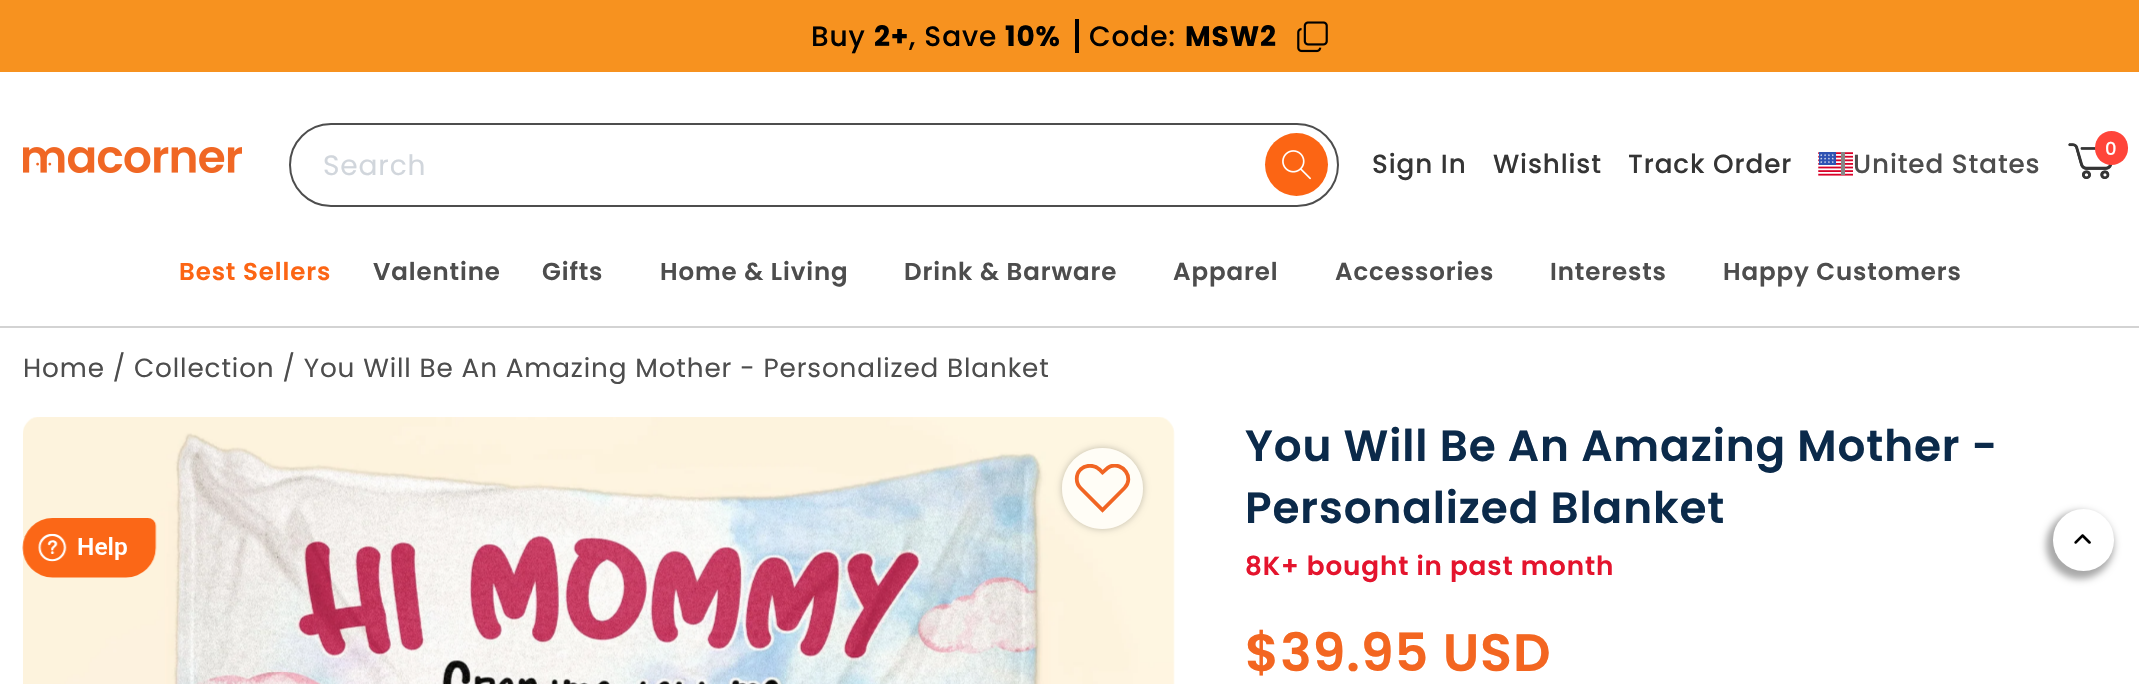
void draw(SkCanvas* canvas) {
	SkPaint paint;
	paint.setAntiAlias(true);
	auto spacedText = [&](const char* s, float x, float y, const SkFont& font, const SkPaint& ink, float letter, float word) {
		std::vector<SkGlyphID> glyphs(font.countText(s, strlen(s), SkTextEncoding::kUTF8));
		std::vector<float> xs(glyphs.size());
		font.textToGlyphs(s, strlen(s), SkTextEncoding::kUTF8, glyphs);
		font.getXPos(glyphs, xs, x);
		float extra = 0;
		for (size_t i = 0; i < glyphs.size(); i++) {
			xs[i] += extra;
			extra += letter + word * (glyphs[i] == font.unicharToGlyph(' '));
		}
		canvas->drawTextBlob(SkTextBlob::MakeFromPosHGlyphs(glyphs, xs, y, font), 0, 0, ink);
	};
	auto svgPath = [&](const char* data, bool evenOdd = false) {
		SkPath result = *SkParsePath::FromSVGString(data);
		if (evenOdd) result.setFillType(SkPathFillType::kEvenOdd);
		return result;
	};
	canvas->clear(0xffffffff);
	paint.setColor(0xffd3d3d3);
	canvas->drawRect(SkRect::MakeXYWH(0, 326, 2139, 2), paint);
	paint.setColor(0xfff7921f);
	canvas->drawRect(SkRect::MakeXYWH(0, 0, 2139, 72), paint);
	SkFont f1(fontMgr->matchFamilyStyle("Poppins", SkFontStyle(500, SkFontStyle::kNormal_Width, SkFontStyle::kUpright_Slant)), 28);
	f1.setSubpixel(true);
	paint.setColor(0xff000000);
	spacedText("Buy", 811, 46, f1, paint, 0.88, 0);
	SkFont f2(fontMgr->matchFamilyStyle("Poppins", SkFontStyle::Bold()), 28);
	f2.setSubpixel(true);
	spacedText("2+", 874, 46, f2, paint, 0.88, 0);
	spacedText(", Save", 909, 46, f1, paint, 0.88, 0);
	spacedText("10%", 1005, 46, f2, paint, 0.88, 0);
	canvas->drawRect(SkRect::MakeXYWH(1075, 19, 4, 34), paint);
	spacedText("Code:", 1089, 46, f1, paint, 0.88, 0);
	spacedText("MSW2", 1185, 46, f2, paint, 0.88, 0);
	canvas->drawImageRect(SkImages::DeferredFromEncodedData(SkData::MakeFromFileName("img1.png")), SkRect::MakeXYWH(1297, 21, 31, 32), SkSamplingOptions());
	canvas->drawImageRect(SkImages::DeferredFromEncodedData(SkData::MakeFromFileName("img2.png")), SkRect::MakeXYWH(23, 147, 219, 26), SkSamplingOptions());
	paint.setColor(0xfffc6514);
	canvas->drawCircle(1296.5, 164.5, 31.5, paint);
	canvas->drawImageRect(SkImages::DeferredFromEncodedData(SkData::MakeFromFileName("img3.png")), SkRect::MakeXYWH(1282, 150, 29, 30), SkSamplingOptions());
	paint.setStroke(true);
	paint.setStrokeWidth(2);
	paint.setColor(0xff4d4d4d);
	canvas->drawRoundRect(SkRect::MakeXYWH(290, 124, 1048, 82), 41, 41, paint);
	SkFont f3(fontMgr->matchFamilyStyle("Poppins", SkFontStyle::Normal()), 28);
	f3.setSubpixel(true);
	paint.setStroke(false);
	paint.setColor(0xffd1d6dc);
	spacedText("Search", 323, 175, f3, paint, 0.88, 0);
	canvas->drawImageRect(SkImages::DeferredFromEncodedData(SkData::MakeFromFileName("img4.png")), SkRect::MakeXYWH(2068, 143, 45, 36), SkSamplingOptions());
	paint.setColor(0xffff453a);
	canvas->drawRoundRect(SkRect::MakeXYWH(2095, 131, 33, 34), 16.5, 16.5, paint);
	SkFont f4(fontMgr->matchFamilyStyle("Poppins", SkFontStyle(500, SkFontStyle::kNormal_Width, SkFontStyle::kUpright_Slant)), 18);
	f4.setSubpixel(true);
	paint.setColor(0xffffffff);
	spacedText("0", 2105, 155, f4, paint, 0.88, 0);
	SkFont f5(fontMgr->matchFamilyStyle("Poppins", SkFontStyle(500, SkFontStyle::kNormal_Width, SkFontStyle::kUpright_Slant)), 26.25);
	f5.setSubpixel(true);
	paint.setColor(0xff353535);
	spacedText("Sign In", 1372, 173, f5, paint, 0.88, 0);
	spacedText("Wishlist", 1493, 173, f5, paint, 0.88, 0);
	spacedText("Track Order", 1628, 173, f5, paint, 0.88, 0);
	canvas->drawImageRect(SkImages::DeferredFromEncodedData(SkData::MakeFromFileName("img5.png")), SkRect::MakeXYWH(1818, 152, 35, 24), SkSamplingOptions());
	paint.setColor(0xff888686);
	canvas->drawRect(SkRect::MakeXYWH(1841, 152, 4, 23), paint);
	paint.setColor(0xff4d4d4d);
	spacedText("United States", 1853, 173, f5, paint, 0.88, 0);
	SkFont f6(fontMgr->matchFamilyStyle("Poppins", SkFontStyle(600, SkFontStyle::kNormal_Width, SkFontStyle::kUpright_Slant)), 24.5);
	f6.setSubpixel(true);
	paint.setColor(0xfffc6514);
	spacedText("Best Sellers", 179, 280, f6, paint, 0.88, 0);
	paint.setColor(0xff4d4d4d);
	spacedText("Valentine", 373, 280, f6, paint, 0.88, 0);
	spacedText("Gifts", 542, 280, f6, paint, 0.88, 0);
	spacedText("Home & Living", 660, 280, f6, paint, 0.88, 0);
	spacedText("Drink & Barware", 904, 280, f6, paint, 0.88, 0);
	spacedText("Apparel", 1173, 280, f6, paint, 0.88, 0);
	spacedText("Accessories", 1335, 280, f6, paint, 0.88, 0);
	spacedText("Interests", 1550, 280, f6, paint, 0.88, 0);
	spacedText("Happy Customers", 1723, 280, f6, paint, 0.88, 0);
	SkFont f7(fontMgr->matchFamilyStyle("Poppins", SkFontStyle::Normal()), 26.25);
	f7.setSubpixel(true);
	spacedText("Home / Collection / You Will Be An Amazing Mother - Personalized Blanket", 23, 377, f7, paint, 0.88, 0);
	canvas->drawImageRect(SkImages::DeferredFromEncodedData(SkData::MakeFromFileName("img6.png")), SkRect::MakeXYWH(23, 417, 1152, 267), SkSamplingOptions());
	canvas->save();
	canvas->clipPath(svgPath("M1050 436H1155V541H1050ZM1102.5 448C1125 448 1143 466 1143 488.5C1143 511 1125 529 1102.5 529C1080 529 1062 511 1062 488.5C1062 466 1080 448 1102.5 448Z", true), true);
	paint.setColor(0x40000000);
	paint.setMaskFilter(SkMaskFilter::MakeBlur(kNormal_SkBlurStyle, 3.5));
	canvas->drawRoundRect(SkRect::MakeXYWH(1062, 448, 81, 81), 40.5, 40.5, paint);
	paint.setMaskFilter(nullptr);
	canvas->restore();
	paint.setColor(0xb3ffffff);
	canvas->drawCircle(1102.5, 488.5, 40.5, paint);
	canvas->save();
	canvas->clipRect(SkRect::MakeXYWH(1073, 464, 59, 49));
	paint.setStroke(true);
	paint.setStrokeWidth(3.8);
	paint.setColor(0xfff16523);
	canvas->drawPath(svgPath("M1124.5 488L1102.5 510L1080.5 488C1075.5 483 1075.5 474.5 1080.5 469.5C1086 464.5 1094 464.5 1099.5 469.5L1102.5 472.5C1105 470.5 1107 468 1110 466.5C1123 461.5 1134.5 478 1124.5 488Z"), paint);
	canvas->restore();
	SkFont f8(fontMgr->matchFamilyStyle("Poppins", SkFontStyle(600, SkFontStyle::kNormal_Width, SkFontStyle::kUpright_Slant)), 43.75);
	f8.setSubpixel(true);
	paint.setStroke(false);
	paint.setColor(0xff0b2a4a);
	spacedText("You Will Be An Amazing Mother -", 1245, 461, f8, paint, 0.88, 0);
	spacedText("Personalized Blanket", 1245, 523, f8, paint, 0.88, 0);
	SkFont f9(fontMgr->matchFamilyStyle("Poppins", SkFontStyle(600, SkFontStyle::kNormal_Width, SkFontStyle::kUpright_Slant)), 26.25);
	f9.setSubpixel(true);
	paint.setColor(0xffe4142d);
	spacedText("8K+ bought in past month", 1245, 575, f9, paint, 0.88, 0);
	SkFont f10(fontMgr->matchFamilyStyle("Poppins", SkFontStyle(600, SkFontStyle::kNormal_Width, SkFontStyle::kUpright_Slant)), 52.5);
	f10.setSubpixel(true);
	paint.setColor(0xfff36621);
	spacedText("$39.95 USD", 1245, 671, f10, paint, 0.88, 0);
	paint.setColor(0xffa9a9a9);
	paint.setMaskFilter(SkMaskFilter::MakeBlur(kNormal_SkBlurStyle, 3.5));
	canvas->drawRoundRect(SkRect::MakeXYWH(2046, 511, 68, 68), 34, 34, paint);
	paint.setMaskFilter(nullptr);
	paint.setColor(0xffffffff);
	canvas->drawRoundRect(SkRect::MakeXYWH(2053, 509, 61, 62), 30.5, 30.5, paint);
	canvas->drawImageRect(SkImages::DeferredFromEncodedData(SkData::MakeFromFileName("img7.png")), SkRect::MakeXYWH(2074, 534, 17, 10), SkSamplingOptions());
	canvas->drawImageRect(SkImages::DeferredFromEncodedData(SkData::MakeFromFileName("img8.png")), SkRect::MakeXYWH(22, 518, 135, 60), SkSamplingOptions());
}
